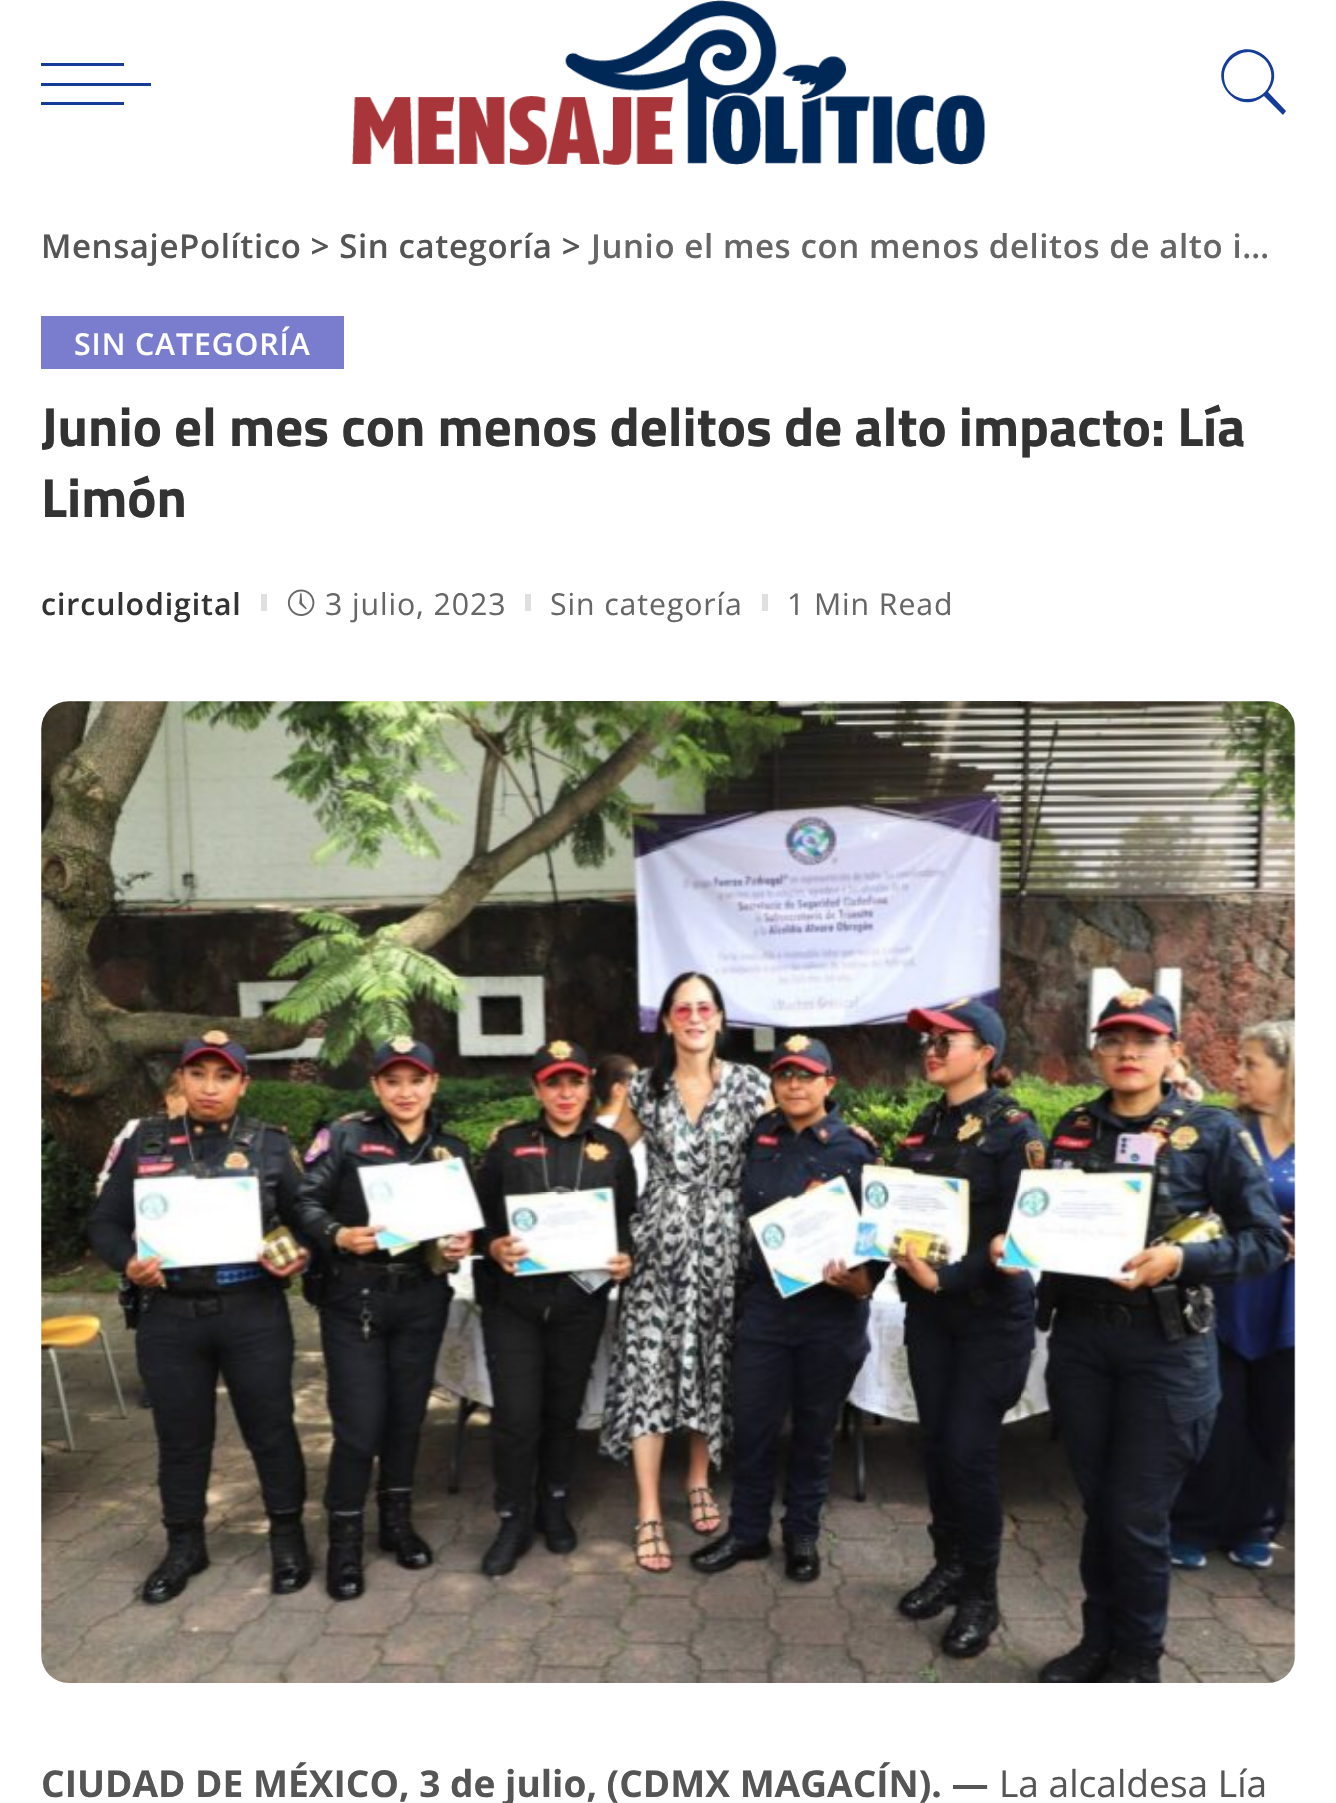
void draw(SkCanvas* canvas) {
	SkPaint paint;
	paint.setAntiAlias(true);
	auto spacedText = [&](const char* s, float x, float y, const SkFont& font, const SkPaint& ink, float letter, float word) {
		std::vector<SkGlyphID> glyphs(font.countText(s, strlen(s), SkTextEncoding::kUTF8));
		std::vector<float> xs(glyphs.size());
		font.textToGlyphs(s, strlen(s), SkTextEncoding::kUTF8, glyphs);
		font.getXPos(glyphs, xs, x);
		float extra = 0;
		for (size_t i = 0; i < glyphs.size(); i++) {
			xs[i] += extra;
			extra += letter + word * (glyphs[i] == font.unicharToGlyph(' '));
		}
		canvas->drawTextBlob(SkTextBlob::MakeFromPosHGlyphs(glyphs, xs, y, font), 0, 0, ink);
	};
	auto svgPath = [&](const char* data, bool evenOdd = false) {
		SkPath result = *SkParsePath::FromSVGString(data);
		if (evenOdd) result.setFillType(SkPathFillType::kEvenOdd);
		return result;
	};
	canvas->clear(0xffffffff);
	paint.setColor(0xff153c99);
	canvas->drawRect(SkRect::MakeXYWH(41, 83, 110, 3), paint);
	canvas->drawRect(SkRect::MakeXYWH(41, 63, 83, 3), paint);
	canvas->drawRect(SkRect::MakeXYWH(41, 102, 83, 3), paint);
	canvas->drawImageRect(SkImages::DeferredFromEncodedData(SkData::MakeFromFileName("img1.png")), SkRect::MakeXYWH(352, 0, 633, 165), SkSamplingOptions());
	canvas->drawPath(svgPath("M1286 111L1268 92C1289 67 1253 34 1229 57C1206 81 1239 117 1264 96L1283 115ZM1224 76C1224 63 1236 52 1249 52C1256 53 1264 57 1268 64C1271 69 1272 75 1271 80C1265 108 1224 104 1224 76Z"), paint);
	SkFont f1(fontMgr->matchFamilyStyle("Open Sans", SkFontStyle(600, SkFontStyle::kNormal_Width, SkFontStyle::kUpright_Slant)), 33);
	f1.setSubpixel(true);
	paint.setColor(0xff555555);
	spacedText("MensajePolítico > Sin categoría >", 41, 258, f1, paint, 0.6, 0);
	paint.setColor(0xff666666);
	spacedText("Junio el mes con menos delitos de alto i…", 591, 258, f1, paint, 0.6, 0);
	paint.setColor(0xff7a7dce);
	canvas->drawRect(SkRect::MakeXYWH(41, 316, 303, 53), paint);
	SkFont f2(fontMgr->matchFamilyStyle("Open Sans", SkFontStyle(600, SkFontStyle::kNormal_Width, SkFontStyle::kUpright_Slant)), 30.25);
	f2.setSubpixel(true);
	paint.setColor(0xffffffff);
	spacedText("SIN CATEGORÍA", 74, 355, f2, paint, 0.9, 0);
	SkFont f3(fontMgr->matchFamilyStyle("Titillium Web", SkFontStyle::Bold()), 55);
	f3.setSubpixel(true);
	paint.setColor(0xff333333);
	canvas->drawString("Junio el mes con menos delitos de alto impacto: Lía", 41, 446, f3, paint);
	canvas->drawString("Limón", 41, 517, f3, paint);
	spacedText("circulodigital", 41, 615, f2, paint, 0.9, 0);
	paint.setColor(0xffe0e0e0);
	canvas->drawRect(SkRect::MakeXYWH(261, 594, 6, 17), paint);
	canvas->drawImageRect(SkImages::DeferredFromEncodedData(SkData::MakeFromFileName("img2.png")), SkRect::MakeXYWH(287, 589, 28, 27), SkSamplingOptions());
	SkFont f4(fontMgr->matchFamilyStyle("Open Sans", SkFontStyle::Normal()), 30.25);
	f4.setSubpixel(true);
	paint.setColor(0xff666666);
	spacedText("3 julio, 2023", 325, 615, f4, paint, 0.9, 0);
	paint.setColor(0xffe0e0e0);
	canvas->drawRect(SkRect::MakeXYWH(525, 594, 6, 17), paint);
	paint.setColor(0xff666666);
	spacedText("Sin categoría", 550, 615, f4, paint, 0.9, 0);
	paint.setColor(0xffe0e0e0);
	canvas->drawRect(SkRect::MakeXYWH(762, 594, 6, 17), paint);
	paint.setColor(0xff666666);
	spacedText("1 Min Read", 787, 615, f4, paint, 0.9, 0);
	canvas->drawImageRect(SkImages::DeferredFromEncodedData(SkData::MakeFromFileName("img3.png")), SkRect::MakeXYWH(41, 701, 1255, 982), SkSamplingOptions());
	SkFont f5(fontMgr->matchFamilyStyle("Open Sans", SkFontStyle::Bold()), 37.1);
	f5.setSubpixel(true);
	paint.setColor(0xff555555);
	canvas->drawString("CIUDAD DE MÉXICO, 3 de julio, (CDMX MAGACÍN). —", 41, 1797, f5, paint);
	SkFont f6(fontMgr->matchFamilyStyle("Open Sans", SkFontStyle::Normal()), 37.1);
	f6.setSubpixel(true);
	canvas->drawString("La alcaldesa Lía", 999, 1797, f6, paint);
}
